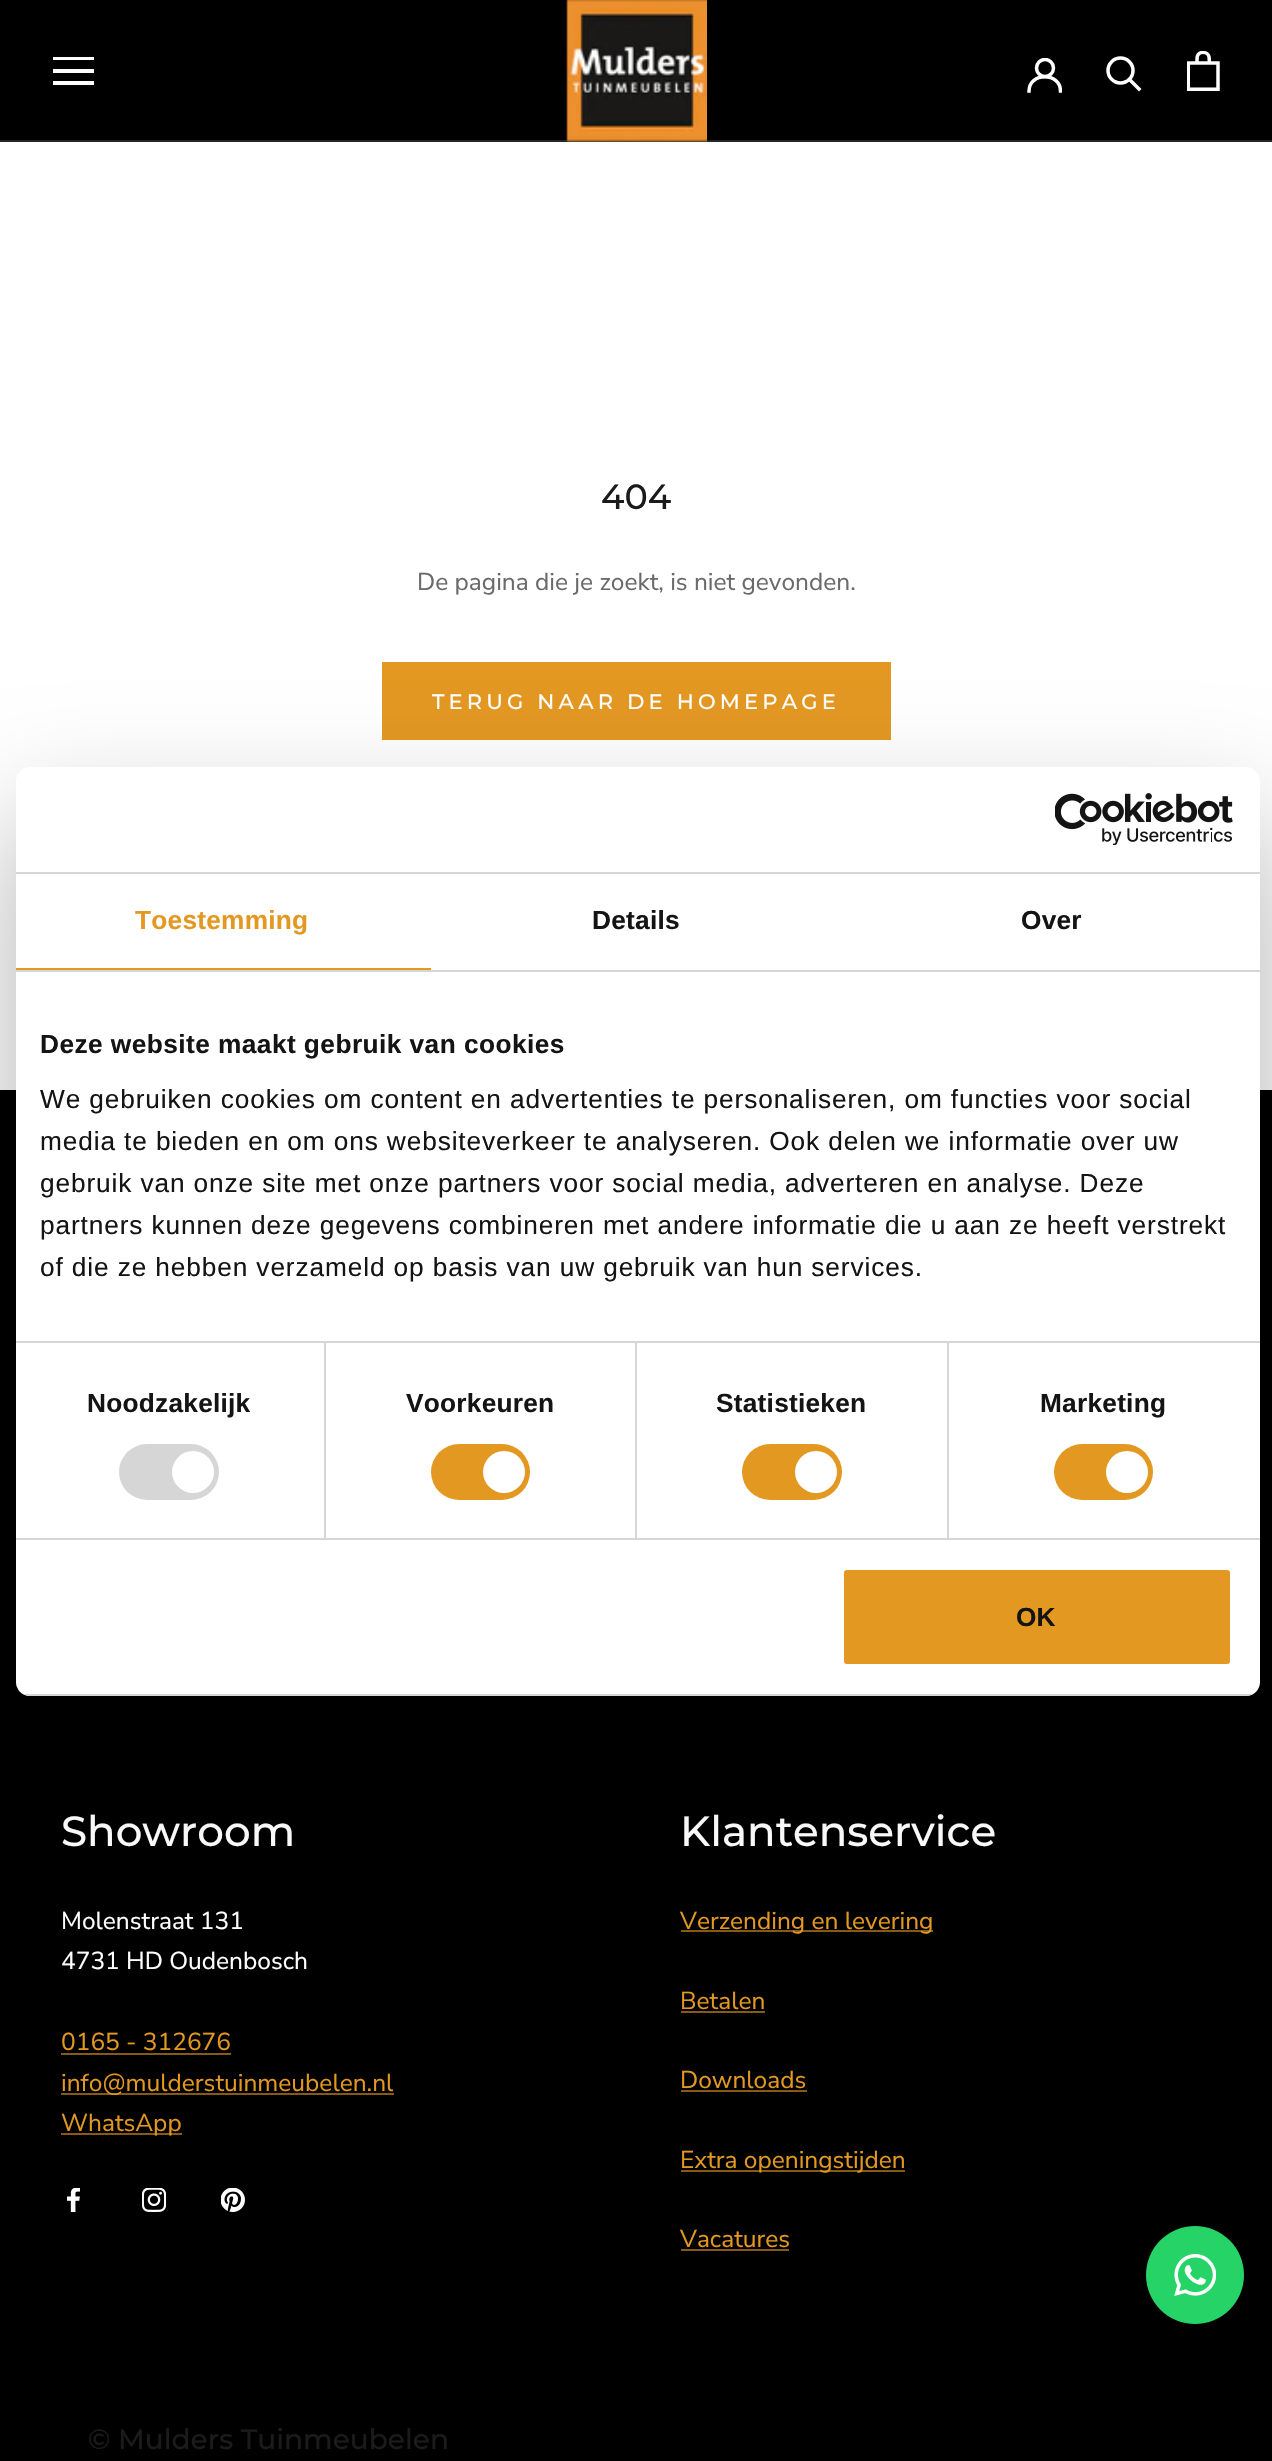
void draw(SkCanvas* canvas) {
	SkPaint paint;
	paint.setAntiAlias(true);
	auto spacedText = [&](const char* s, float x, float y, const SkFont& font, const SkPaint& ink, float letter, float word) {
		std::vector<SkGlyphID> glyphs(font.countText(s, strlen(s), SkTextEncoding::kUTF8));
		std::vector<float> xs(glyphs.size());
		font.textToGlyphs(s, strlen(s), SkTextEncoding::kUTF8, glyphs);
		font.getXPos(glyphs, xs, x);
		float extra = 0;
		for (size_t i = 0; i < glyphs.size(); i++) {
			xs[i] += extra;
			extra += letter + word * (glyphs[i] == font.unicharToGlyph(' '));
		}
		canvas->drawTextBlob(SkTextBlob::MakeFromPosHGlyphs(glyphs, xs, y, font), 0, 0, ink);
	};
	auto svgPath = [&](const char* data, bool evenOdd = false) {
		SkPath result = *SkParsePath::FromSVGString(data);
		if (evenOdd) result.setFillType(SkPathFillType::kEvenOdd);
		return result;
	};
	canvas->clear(0xffffffff);
	paint.setColor(0xff000000);
	canvas->drawRect(SkRect::MakeXYWH(0, 0, 1272, 140), paint);
	paint.setColor(0xff262626);
	canvas->drawRect(SkRect::MakeXYWH(0, 140, 1272, 2), paint);
	canvas->save();
	canvas->clipRect(SkRect::MakeXYWH(53, 56, 42, 30));
	paint.setColor(0xffffffff);
	canvas->drawPath(svgPath("M52 85V81H94V85ZM52 69H94V73H52ZM52 57H94V60H52Z"), paint);
	canvas->restore();
	canvas->drawImageRect(SkImages::DeferredFromEncodedData(SkData::MakeFromFileName("img1.png")), SkRect::MakeXYWH(566, 0, 141, 142), SkSamplingOptions());
	canvas->save();
	canvas->clipRect(SkRect::MakeXYWH(1027, 58, 35, 35));
	paint.setStroke(true);
	paint.setStrokeWidth(3.5);
	paint.setStrokeCap(SkPaint::kSquare_Cap);
	canvas->drawPath(svgPath("M1029 91C1029 72 1060.5 72 1060.5 91"), paint);
	paint.setStrokeCap(SkPaint::kButt_Cap);
	canvas->drawCircle(1045, 68, 8.5, paint);
	canvas->restore();
	paint.setStrokeCap(SkPaint::kSquare_Cap);
	canvas->drawPath(svgPath("M1139 89L1129.5 79.5"), paint);
	paint.setStrokeCap(SkPaint::kButt_Cap);
	canvas->drawCircle(1120.5, 70.5, 12.5, paint);
	canvas->drawImageRect(SkImages::DeferredFromEncodedData(SkData::MakeFromFileName("img2.png")), SkRect::MakeXYWH(1187, 51, 33, 40), SkSamplingOptions());
	SkFont f1(fontMgr->matchFamilyStyle("Montserrat", SkFontStyle(500, SkFontStyle::kNormal_Width, SkFontStyle::kUpright_Slant)), 35);
	f1.setSubpixel(true);
	paint.setStroke(false);
	paint.setColor(0xff1c1b1b);
	canvas->drawString("404", 601, 509, f1, paint);
	SkFont f2(fontMgr->matchFamilyStyle("Nunito Sans", SkFontStyle::Normal()), 24.5);
	f2.setSubpixel(true);
	paint.setColor(0xff6a6a6a);
	canvas->drawString("De pagina die je zoekt, is niet gevonden.", 417, 590, f2, paint);
	paint.setStroke(true);
	paint.setStrokeWidth(2);
	paint.setColor(0xffe39822);
	canvas->drawRect(SkRect::MakeXYWH(383, 663, 507, 76), paint);
	paint.setStroke(false);
	canvas->drawRect(SkRect::MakeXYWH(384, 664, 505, 74), paint);
	SkFont f3(fontMgr->matchFamilyStyle("Montserrat", SkFontStyle(500, SkFontStyle::kNormal_Width, SkFontStyle::kUpright_Slant)), 21);
	f3.setSubpixel(true);
	paint.setColor(0xffffffff);
	spacedText("TERUG NAAR DE HOMEPAGE", 432, 709, f3, paint, 4.2, 0);
	paint.setColor(0xff000000);
	canvas->drawRect(SkRect::MakeXYWH(0, 1090, 1272, 1371), paint);
	SkFont f4(fontMgr->matchFamilyStyle("Montserrat", SkFontStyle(500, SkFontStyle::kNormal_Width, SkFontStyle::kUpright_Slant)), 42);
	f4.setSubpixel(true);
	paint.setColor(0xffffffff);
	canvas->drawString("Showroom", 61, 1846, f4, paint);
	canvas->drawString("Molenstraat 131", 61, 1929, f2, paint);
	canvas->drawString("4731 HD Oudenbosch", 61, 1969, f2, paint);
	paint.setColor(0xffe39822);
	canvas->drawString("0165 - 312676", 61, 2050, f2, paint);
	paint.setColor(0xff885b14);
	canvas->drawRect(SkRect::MakeXYWH(61, 2053, 170, 2), paint);
	canvas->drawRect(SkRect::MakeXYWH(61, 2093, 333, 2), paint);
	paint.setColor(0xffe39822);
	canvas->drawString("info@mulderstuinmeubelen.nl", 61, 2091, f2, paint);
	paint.setColor(0xff885b14);
	canvas->drawRect(SkRect::MakeXYWH(61, 2133, 121, 2), paint);
	paint.setColor(0xffe39822);
	canvas->drawString("WhatsApp", 61, 2131, f2, paint);
	canvas->drawImageRect(SkImages::DeferredFromEncodedData(SkData::MakeFromFileName("img3.png")), SkRect::MakeXYWH(67, 2188, 13, 24), SkSamplingOptions());
	canvas->drawImageRect(SkImages::DeferredFromEncodedData(SkData::MakeFromFileName("img4.png")), SkRect::MakeXYWH(142, 2188, 24, 24), SkSamplingOptions());
	canvas->drawImageRect(SkImages::DeferredFromEncodedData(SkData::MakeFromFileName("img5.png")), SkRect::MakeXYWH(221, 2188, 24, 24), SkSamplingOptions());
	paint.setColor(0xffffffff);
	canvas->drawString("Klantenservice", 680, 1846, f4, paint);
	paint.setColor(0xff885b14);
	canvas->drawRect(SkRect::MakeXYWH(681, 1930, 252, 2), paint);
	paint.setColor(0xffe39822);
	canvas->drawString("Verzending en levering", 680, 1929, f2, paint);
	canvas->drawString("Betalen", 680, 2009, f2, paint);
	paint.setColor(0xff885b14);
	canvas->drawRect(SkRect::MakeXYWH(681, 2011, 84, 2), paint);
	paint.setColor(0xffe39822);
	canvas->drawString("Downloads", 680, 2088, f2, paint);
	paint.setColor(0xff885b14);
	canvas->drawRect(SkRect::MakeXYWH(681, 2090, 126, 2), paint);
	canvas->drawRect(SkRect::MakeXYWH(681, 2170, 224, 2), paint);
	paint.setColor(0xffe39822);
	canvas->drawString("Extra openingstijden", 680, 2168, f2, paint);
	canvas->drawString("Vacatures", 680, 2247, f2, paint);
	paint.setColor(0xff885b14);
	canvas->drawRect(SkRect::MakeXYWH(681, 2249, 108, 2), paint);
	SkFont f5(fontMgr->matchFamilyStyle("Montserrat", SkFontStyle(500, SkFontStyle::kNormal_Width, SkFontStyle::kUpright_Slant)), 28);
	f5.setSubpixel(true);
	paint.setColor(0xff1c1b1b);
	canvas->drawString("© Mulders Tuinmeubelen", 88, 2449, f5, paint);
	paint.setColor(0xff25d366);
	canvas->drawCircle(1195, 2275, 49, paint);
	canvas->drawImageRect(SkImages::DeferredFromEncodedData(SkData::MakeFromFileName("img6.png")), SkRect::MakeXYWH(1174, 2254, 42, 42), SkSamplingOptions());
	paint.setColor(0x4d000000);
	paint.setMaskFilter(SkMaskFilter::MakeBlur(kNormal_SkBlurStyle, 59.5));
	canvas->drawRoundRect(SkRect::MakeXYWH(16, 823, 1244, 929), 14, 14, paint);
	paint.setMaskFilter(nullptr);
	paint.setColor(0xffffffff);
	canvas->drawRoundRect(SkRect::MakeXYWH(16, 767, 1244, 929), 14, 14, paint);
	paint.setColor(0xffd6d6d6);
	canvas->drawRect(SkRect::MakeXYWH(16, 872, 1244, 2), paint);
	canvas->drawImageRect(SkImages::DeferredFromEncodedData(SkData::MakeFromFileName("img7.png")), SkRect::MakeXYWH(1055, 793, 178, 52), SkSamplingOptions());
	canvas->drawRect(SkRect::MakeXYWH(16, 970, 1244, 2), paint);
	paint.setColor(0xffe39822);
	canvas->drawRect(SkRect::MakeXYWH(16, 968, 415, 2), paint);
	SkFont f6(fontMgr->matchFamilyStyle("Liberation Sans", SkFontStyle::Bold()), 26.25);
	f6.setSubpixel(true);
	spacedText("Toestemming", 135, 929, f6, paint, 0.25, 0);
	paint.setColor(0xff141414);
	spacedText("Details", 592, 929, f6, paint, 0.25, 0);
	spacedText("Over", 1021, 929, f6, paint, 0.25, 0);
	paint.setColor(0xffd6d6d6);
	canvas->drawRect(SkRect::MakeXYWH(324, 1342, 2, 196), paint);
	canvas->drawRect(SkRect::MakeXYWH(635, 1342, 2, 196), paint);
	canvas->drawRect(SkRect::MakeXYWH(947, 1342, 2, 196), paint);
	canvas->drawRect(SkRect::MakeXYWH(16, 1341, 1244, 2), paint);
	paint.setColor(0xff141414);
	spacedText("Deze website maakt gebruik van cookies", 40, 1053, f6, paint, 0.45, 0);
	SkFont f7(fontMgr->matchFamilyStyle("Liberation Sans", SkFontStyle::Normal()), 26.25);
	f7.setSubpixel(true);
	spacedText("We gebruiken cookies om content en advertenties te personaliseren, om functies voor social", 40, 1108, f7, paint, 0.88, 0);
	spacedText("media te bieden en om ons websiteverkeer te analyseren. Ook delen we informatie over uw", 40, 1150, f7, paint, 0.88, 0);
	spacedText("gebruik van onze site met onze partners voor social media, adverteren en analyse. Deze", 40, 1192, f7, paint, 0.88, 0);
	spacedText("partners kunnen deze gegevens combineren met andere informatie die u aan ze heeft verstrekt", 40, 1234, f7, paint, 0.88, 0);
	spacedText("of die ze hebben verzameld op basis van uw gebruik van hun services.", 40, 1276, f7, paint, 0.88, 0);
	paint.setColor(0xffd6d6d6);
	canvas->drawRect(SkRect::MakeXYWH(16, 1538, 1244, 2), paint);
	paint.setColor(0xff141414);
	spacedText("Noodzakelijk", 87, 1412, f6, paint, 0.25, 0);
	paint.setColor(0xffd6d6d6);
	canvas->drawRoundRect(SkRect::MakeXYWH(119, 1444, 100, 56), 28, 28, paint);
	paint.setColor(0xffffffff);
	canvas->drawCircle(193, 1472, 21, paint);
	paint.setColor(0xff141414);
	spacedText("Voorkeuren", 406, 1412, f6, paint, 0.25, 0);
	paint.setColor(0xffe39822);
	canvas->drawRoundRect(SkRect::MakeXYWH(431, 1444, 99, 56), 28, 28, paint);
	paint.setColor(0xffffffff);
	canvas->drawCircle(504, 1472, 21, paint);
	paint.setColor(0xff141414);
	spacedText("Statistieken", 716, 1412, f6, paint, 0.25, 0);
	paint.setColor(0xffe39822);
	canvas->drawRoundRect(SkRect::MakeXYWH(742, 1444, 100, 56), 28, 28, paint);
	paint.setColor(0xffffffff);
	canvas->drawCircle(816, 1472, 21, paint);
	paint.setColor(0xff141414);
	spacedText("Marketing", 1040, 1412, f6, paint, 0.25, 0);
	paint.setColor(0xffe39822);
	canvas->drawRoundRect(SkRect::MakeXYWH(1054, 1444, 99, 56), 28, 28, paint);
	paint.setColor(0xffffffff);
	canvas->drawCircle(1127, 1472, 21, paint);
	canvas->save();
	canvas->clipPath(svgPath("M30 767H1246C1253.5 767 1260 773.5 1260 781V1682C1260 1689.5 1253.5 1696 1246 1696H30C22.5 1696 16 1689.5 16 1682V781C16 773.5 22.5 767 30 767Z"), true);
	paint.setColor(0xffd6d6d6);
	canvas->drawRect(SkRect::MakeXYWH(16, 1694, 1244, 2), paint);
	canvas->restore();
	paint.setColor(0xffe39822);
	canvas->drawRoundRect(SkRect::MakeXYWH(842, 1568, 390, 98), 5, 5, paint);
	paint.setStroke(true);
	paint.setStrokeWidth(4);
	paint.setColor(0xffffffff);
	canvas->drawRoundRect(SkRect::MakeXYWH(842, 1568, 390, 98), 5, 5, paint);
	paint.setStroke(false);
	paint.setColor(0xff141414);
	canvas->drawString("OK", 1016, 1626, f6, paint);
}
